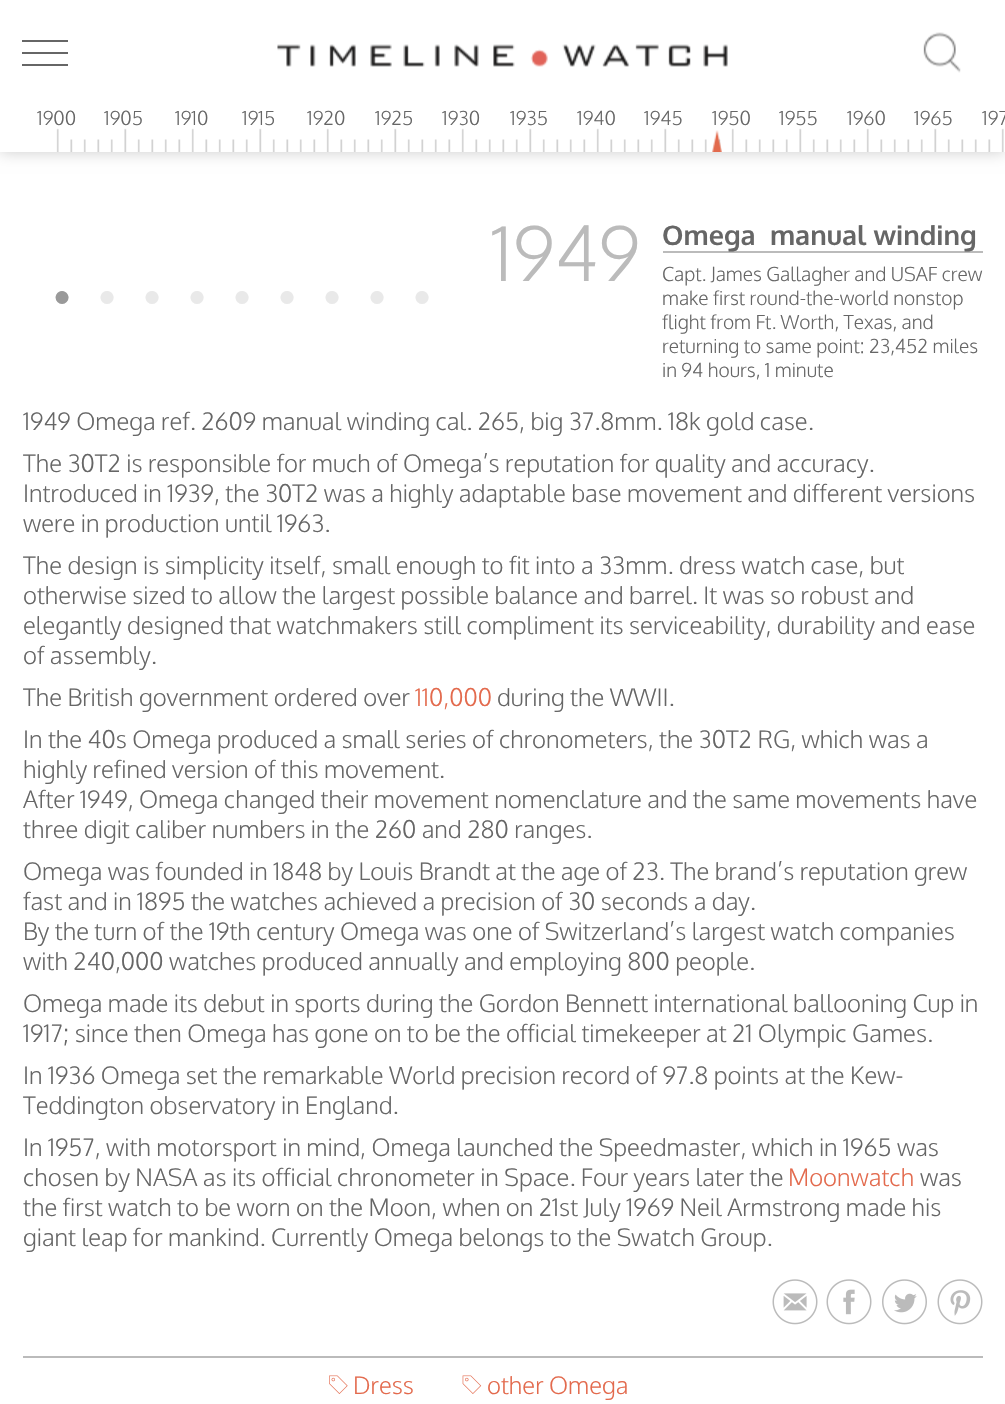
void draw(SkCanvas* canvas) {
	SkPaint paint;
	paint.setAntiAlias(true);
	auto svgPath = [&](const char* data, bool evenOdd = false) {
		SkPath result = *SkParsePath::FromSVGString(data);
		if (evenOdd) result.setFillType(SkPathFillType::kEvenOdd);
		return result;
	};
	canvas->clear(0xffffffff);
	canvas->save();
	canvas->clipPath(svgPath("M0 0H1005V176H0ZM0 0H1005V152H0Z", true), true);
	paint.setColor(0x33000000);
	paint.setMaskFilter(SkMaskFilter::MakeBlur(kNormal_SkBlurStyle, 7.5));
	canvas->drawRect(SkRect::MakeXYWH(0, 0, 1005, 152), paint);
	paint.setMaskFilter(nullptr);
	canvas->restore();
	paint.setColor(0xe6ffffff);
	canvas->drawRect(SkRect::MakeXYWH(0, 151, 1005, 1), paint);
	paint.setColor(0xff666666);
	canvas->drawPath(svgPath("M22 40H68V42H22ZM22 52H68V54H22ZM22 64H68V66H22Z"), paint);
	canvas->drawImageRect(SkImages::DeferredFromEncodedData(SkData::MakeFromFileName("img1.png")), SkRect::MakeXYWH(277, 44, 451, 23), SkSamplingOptions());
	canvas->drawImageRect(SkImages::DeferredFromEncodedData(SkData::MakeFromFileName("img2.png")), SkRect::MakeXYWH(923, 32, 38, 41), SkSamplingOptions());
	canvas->drawImageRect(SkImages::DeferredFromEncodedData(SkData::MakeFromFileName("img3.png")), SkRect::MakeXYWH(56, 128, 948, 24), SkSamplingOptions());
	SkFont f1(fontMgr->matchFamilyStyle("Oxygen", SkFontStyle(300, SkFontStyle::kNormal_Width, SkFontStyle::kUpright_Slant)), 19.25);
	f1.setSubpixel(true);
	canvas->drawString("1900", 37, 125, f1, paint);
	canvas->drawString("1905", 104, 125, f1, paint);
	canvas->drawString("1910", 175, 125, f1, paint);
	canvas->drawString("1915", 242, 125, f1, paint);
	canvas->drawString("1920", 307, 125, f1, paint);
	canvas->drawString("1925", 375, 125, f1, paint);
	canvas->drawString("1930", 442, 125, f1, paint);
	canvas->drawString("1935", 510, 125, f1, paint);
	canvas->drawString("1940", 577, 125, f1, paint);
	canvas->drawString("1945", 644, 125, f1, paint);
	canvas->drawString("1950", 712, 125, f1, paint);
	canvas->drawString("1955", 779, 125, f1, paint);
	canvas->drawString("1960", 847, 125, f1, paint);
	canvas->drawString("1965", 914, 125, f1, paint);
	canvas->drawString("197", 982, 125, f1, paint);
	canvas->drawImageRect(SkImages::DeferredFromEncodedData(SkData::MakeFromFileName("img4.png")), SkRect::MakeXYWH(712, 130, 10, 22), SkSamplingOptions());
	SkFont f2(fontMgr->matchFamilyStyle("Oxygen", SkFontStyle(300, SkFontStyle::kNormal_Width, SkFontStyle::kUpright_Slant)), 75);
	f2.setSubpixel(true);
	paint.setColor(0xffbbbbbb);
	canvas->drawString("1949", 491, 281, f2, paint);
	canvas->drawRect(SkRect::MakeXYWH(663, 251, 320, 2), paint);
	SkFont f3(fontMgr->matchFamilyStyle("Oxygen", SkFontStyle::Bold()), 27);
	f3.setSubpixel(true);
	paint.setColor(0xff666666);
	canvas->drawString("Omega  manual winding", 662, 245, f3, paint);
	canvas->drawString("Capt. James Gallagher and USAF crew", 662, 281, f1, paint);
	canvas->drawString("make first round-the-world nonstop", 662, 305, f1, paint);
	canvas->drawString("flight from Ft. Worth, Texas, and", 662, 329, f1, paint);
	canvas->drawString("returning to same point: 23,452 miles", 662, 353, f1, paint);
	canvas->drawString("in 94 hours, 1 minute", 662, 377, f1, paint);
	SkFont f4(fontMgr->matchFamilyStyle("Oxygen", SkFontStyle(300, SkFontStyle::kNormal_Width, SkFontStyle::kUpright_Slant)), 24);
	f4.setSubpixel(true);
	canvas->drawString("1949 Omega ref. 2609 manual winding cal. 265, big 37.8mm. 18k gold case.", 23, 430, f4, paint);
	canvas->drawString("The 30T2 is responsible for much of Omega’s reputation for quality and accuracy.", 23, 472, f4, paint);
	canvas->drawString("Introduced in 1939, the 30T2 was a highly adaptable base movement and different versions", 23, 502, f4, paint);
	canvas->drawString("were in production until 1963.", 23, 532, f4, paint);
	canvas->drawString("The design is simplicity itself, small enough to fit into a 33mm. dress watch case, but", 23, 574, f4, paint);
	canvas->drawString("otherwise sized to allow the largest possible balance and barrel. It was so robust and", 23, 604, f4, paint);
	canvas->drawString("elegantly designed that watchmakers still compliment its serviceability, durability and ease", 23, 634, f4, paint);
	canvas->drawString("of assembly.", 23, 664, f4, paint);
	canvas->drawString("The British government ordered over", 23, 706, f4, paint);
	paint.setColor(0xffe36a4d);
	canvas->drawString("110,000", 415, 706, f4, paint);
	paint.setColor(0xff666666);
	canvas->drawString("during the WWII.", 497, 706, f4, paint);
	canvas->drawString("In the 40s Omega produced a small series of chronometers, the 30T2 RG, which was a", 23, 748, f4, paint);
	canvas->drawString("highly refined version of this movement.", 23, 778, f4, paint);
	canvas->drawString("After 1949, Omega changed their movement nomenclature and the same movements have", 23, 808, f4, paint);
	canvas->drawString("three digit caliber numbers in the 260 and 280 ranges.", 23, 838, f4, paint);
	canvas->drawString("Omega was founded in 1848 by Louis Brandt at the age of 23. The brand’s reputation grew", 23, 880, f4, paint);
	canvas->drawString("fast and in 1895 the watches achieved a precision of 30 seconds a day.", 23, 910, f4, paint);
	canvas->drawString("By the turn of the 19th century Omega was one of Switzerland’s largest watch companies", 23, 940, f4, paint);
	canvas->drawString("with 240,000 watches produced annually and employing 800 people.", 23, 970, f4, paint);
	canvas->drawString("Omega made its debut in sports during the Gordon Bennett international ballooning Cup in", 23, 1012, f4, paint);
	canvas->drawString("1917; since then Omega has gone on to be the official timekeeper at 21 Olympic Games.", 23, 1042, f4, paint);
	canvas->drawString("In 1936 Omega set the remarkable World precision record of 97.8 points at the Kew-", 23, 1084, f4, paint);
	canvas->drawString("Teddington observatory in England.", 23, 1114, f4, paint);
	canvas->drawString("In 1957, with motorsport in mind, Omega launched the Speedmaster, which in 1965 was", 23, 1156, f4, paint);
	canvas->drawString("chosen by NASA as its official chronometer in Space. Four years later the", 23, 1186, f4, paint);
	paint.setColor(0xffe36a4d);
	canvas->drawString("Moonwatch", 788, 1186, f4, paint);
	paint.setColor(0xff666666);
	canvas->drawString("was", 920, 1186, f4, paint);
	canvas->drawString("the first watch to be worn on the Moon, when on 21st July 1969 Neil Armstrong made his", 23, 1216, f4, paint);
	canvas->drawString("giant leap for mankind. Currently Omega belongs to the Swatch Group.", 23, 1246, f4, paint);
	SkFont f5(fontMgr->matchFamilyStyle("Liberation Serif", SkFontStyle::Normal()), 30);
	f5.setSubpixel(true);
	paint.setColor(0xff999999);
	canvas->drawString("●", 53, 306, f5, paint);
	paint.setColor(0xffe9e9e9);
	canvas->drawString("●", 98, 306, f5, paint);
	canvas->drawString("●", 143, 306, f5, paint);
	canvas->drawString("●", 188, 306, f5, paint);
	canvas->drawString("●", 233, 306, f5, paint);
	canvas->drawString("●", 278, 306, f5, paint);
	canvas->drawString("●", 323, 306, f5, paint);
	canvas->drawString("●", 368, 306, f5, paint);
	canvas->drawString("●", 413, 306, f5, paint);
	canvas->drawImageRect(SkImages::DeferredFromEncodedData(SkData::MakeFromFileName("img5.png")), SkRect::MakeXYWH(772, 1279, 46, 46), SkSamplingOptions());
	canvas->drawImageRect(SkImages::DeferredFromEncodedData(SkData::MakeFromFileName("img6.png")), SkRect::MakeXYWH(826, 1279, 46, 46), SkSamplingOptions());
	canvas->drawImageRect(SkImages::DeferredFromEncodedData(SkData::MakeFromFileName("img7.png")), SkRect::MakeXYWH(882, 1279, 45, 46), SkSamplingOptions());
	canvas->drawImageRect(SkImages::DeferredFromEncodedData(SkData::MakeFromFileName("img8.png")), SkRect::MakeXYWH(937, 1279, 46, 46), SkSamplingOptions());
	paint.setColor(0xffbbbbbb);
	canvas->drawRect(SkRect::MakeXYWH(23, 1356, 960, 2), paint);
	canvas->drawImageRect(SkImages::DeferredFromEncodedData(SkData::MakeFromFileName("img9.png")), SkRect::MakeXYWH(329, 1375, 19, 19), SkSamplingOptions());
	paint.setColor(0xffe36a4d);
	canvas->drawString("Dress", 353, 1394, f4, paint);
	canvas->drawImageRect(SkImages::DeferredFromEncodedData(SkData::MakeFromFileName("img10.png")), SkRect::MakeXYWH(462, 1375, 20, 19), SkSamplingOptions());
	canvas->drawString("other Omega", 487, 1394, f4, paint);
}
